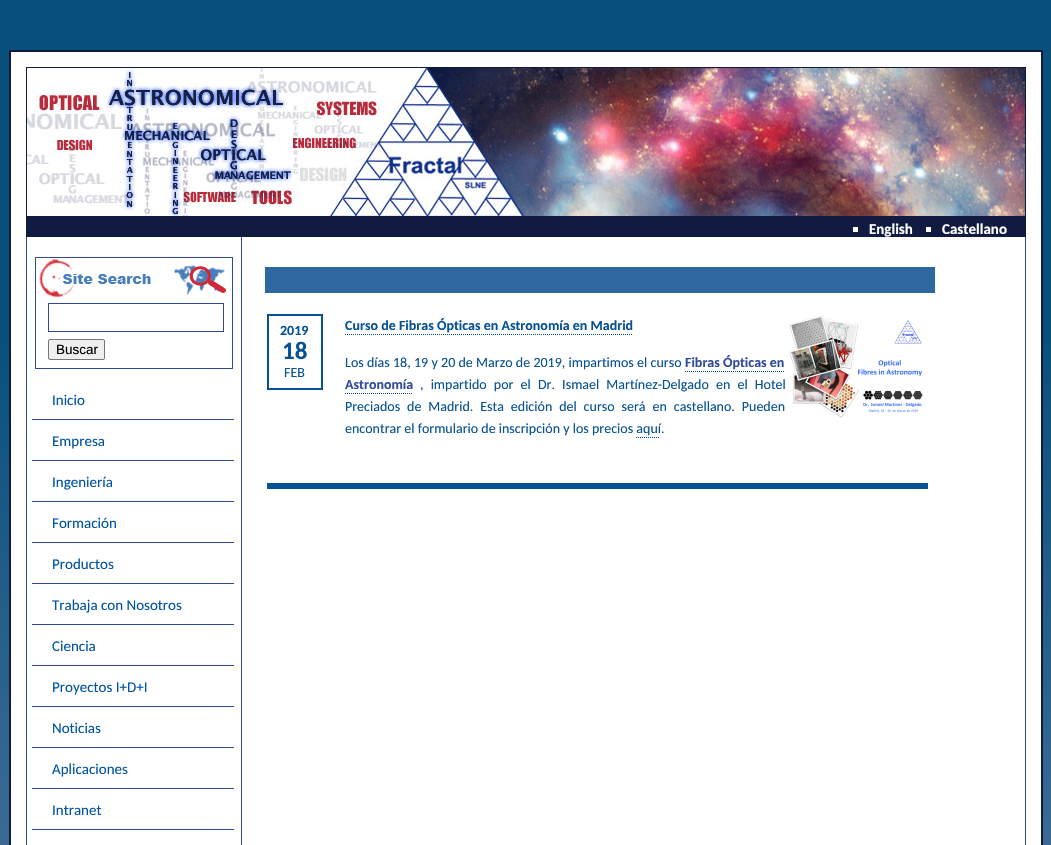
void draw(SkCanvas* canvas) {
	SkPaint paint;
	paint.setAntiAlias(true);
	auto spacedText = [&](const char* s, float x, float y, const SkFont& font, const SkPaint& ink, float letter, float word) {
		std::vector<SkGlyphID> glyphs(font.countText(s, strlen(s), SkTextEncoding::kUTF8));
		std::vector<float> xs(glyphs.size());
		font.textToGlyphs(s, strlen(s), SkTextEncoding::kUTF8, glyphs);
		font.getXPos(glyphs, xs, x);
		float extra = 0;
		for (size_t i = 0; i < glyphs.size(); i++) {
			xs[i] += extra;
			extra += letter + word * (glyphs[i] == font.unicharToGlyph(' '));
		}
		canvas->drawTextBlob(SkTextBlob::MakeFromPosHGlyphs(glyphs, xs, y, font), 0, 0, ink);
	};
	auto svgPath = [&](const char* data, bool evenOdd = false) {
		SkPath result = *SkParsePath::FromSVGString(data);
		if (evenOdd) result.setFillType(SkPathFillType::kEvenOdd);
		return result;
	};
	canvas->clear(0xffffffff);
	{
		const SkColor colors[] = {0xff09507d, 0xff6883a8};
		const float stops[] = {0.23, 1};
		const SkPoint ends[] = {{525, 0}, {526, 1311}};
		paint.setShader(SkGradientShader::MakeLinear(ends, colors, stops, 2, SkTileMode::kClamp));
		paint.setAlpha(255);
	}
	canvas->drawRect(SkRect::MakeXYWH(0, 0, 1051, 50), paint);
	{
		const SkColor colors[] = {0xff09507d, 0xff6883a8};
		const float stops[] = {0.23, 1};
		const SkPoint ends[] = {{525, 50}, {526, 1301}};
		paint.setShader(SkGradientShader::MakeLinear(ends, colors, stops, 2, SkTileMode::kClamp));
		paint.setAlpha(255);
	}
	canvas->drawRect(SkRect::MakeXYWH(0, 50, 1051, 795), paint);
	paint.setShader(nullptr);
	paint.setColor(0xffffffff);
	canvas->drawRect(SkRect::MakeXYWH(10, 51, 1032, 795), paint);
	paint.setStroke(true);
	paint.setStrokeWidth(2);
	paint.setColor(0xff111a41);
	canvas->drawRect(SkRect::MakeXYWH(10, 51, 1032, 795), paint);
	canvas->drawImageRect(SkImages::DeferredFromEncodedData(SkData::MakeFromFileName("img1.png")), SkRect::MakeXYWH(27, 68, 998, 148), SkSamplingOptions());
	paint.setStrokeWidth(1);
	canvas->drawRect(SkRect::MakeXYWH(26.5, 67.5, 999, 149), paint);
	paint.setStroke(false);
	canvas->drawRect(SkRect::MakeXYWH(26, 217, 1000, 20), paint);
	paint.setColor(0xffffffff);
	canvas->drawRect(SkRect::MakeXYWH(853, 227, 5, 5), paint);
	SkFont f1(fontMgr->matchFamilyStyle("Carlito", SkFontStyle::Bold()), 15);
	f1.setSubpixel(true);
	canvas->drawString("English", 869, 234, f1, paint);
	canvas->drawRect(SkRect::MakeXYWH(926, 227, 5, 5), paint);
	canvas->drawString("Castellano", 942, 234, f1, paint);
	paint.setColor(0xff304a97);
	canvas->drawRect(SkRect::MakeXYWH(241, 237, 1, 608), paint);
	canvas->drawRect(SkRect::MakeXYWH(26, 237, 1, 608), paint);
	canvas->drawImageRect(SkImages::DeferredFromEncodedData(SkData::MakeFromFileName("img2.png")), SkRect::MakeXYWH(39, 259, 187, 38), SkSamplingOptions());
	paint.setStroke(true);
	canvas->drawRect(SkRect::MakeXYWH(35.5, 257.5, 197, 111), paint);
	canvas->drawRect(SkRect::MakeXYWH(48.5, 303.5, 175, 28), paint);
	paint.setStroke(false);
	paint.setColor(0xffefefef);
	canvas->drawRoundRect(SkRect::MakeXYWH(48.5, 339.5, 56, 20), 1.5, 1.5, paint);
	paint.setStroke(true);
	paint.setColor(0xff767676);
	canvas->drawRoundRect(SkRect::MakeXYWH(48.5, 339.5, 56, 20), 1.5, 1.5, paint);
	SkFont f2(fontMgr->matchFamilyStyle("Liberation Sans", SkFontStyle::Normal()), 13.5);
	f2.setSubpixel(true);
	paint.setStroke(false);
	paint.setColor(0xff000000);
	canvas->drawString("Buscar", 56, 354, f2, paint);
	paint.setColor(0xff304a97);
	canvas->drawRect(SkRect::MakeXYWH(32, 419, 202, 1), paint);
	SkFont f3(fontMgr->matchFamilyStyle("Carlito", SkFontStyle::Normal()), 15);
	f3.setSubpixel(true);
	paint.setColor(0xff0054a4);
	canvas->drawString("Inicio", 52, 405, f3, paint);
	paint.setColor(0xff304a97);
	canvas->drawRect(SkRect::MakeXYWH(32, 460, 202, 1), paint);
	paint.setColor(0xff0054a4);
	canvas->drawString("Empresa", 52, 446, f3, paint);
	paint.setColor(0xff304a97);
	canvas->drawRect(SkRect::MakeXYWH(32, 501, 202, 1), paint);
	paint.setColor(0xff0054a4);
	canvas->drawString("Ingeniería", 52, 487, f3, paint);
	paint.setColor(0xff304a97);
	canvas->drawRect(SkRect::MakeXYWH(32, 542, 202, 1), paint);
	paint.setColor(0xff0054a4);
	canvas->drawString("Formación", 52, 528, f3, paint);
	paint.setColor(0xff304a97);
	canvas->drawRect(SkRect::MakeXYWH(32, 583, 202, 1), paint);
	paint.setColor(0xff0054a4);
	canvas->drawString("Productos", 52, 569, f3, paint);
	paint.setColor(0xff304a97);
	canvas->drawRect(SkRect::MakeXYWH(32, 624, 202, 1), paint);
	paint.setColor(0xff0054a4);
	canvas->drawString("Trabaja con Nosotros", 52, 610, f3, paint);
	paint.setColor(0xff304a97);
	canvas->drawRect(SkRect::MakeXYWH(32, 665, 202, 1), paint);
	paint.setColor(0xff0054a4);
	canvas->drawString("Ciencia", 52, 651, f3, paint);
	paint.setColor(0xff304a97);
	canvas->drawRect(SkRect::MakeXYWH(32, 706, 202, 1), paint);
	paint.setColor(0xff0054a4);
	canvas->drawString("Proyectos I+D+I", 52, 692, f3, paint);
	paint.setColor(0xff304a97);
	canvas->drawRect(SkRect::MakeXYWH(32, 747, 202, 1), paint);
	paint.setColor(0xff0054a4);
	canvas->drawString("Noticias", 52, 733, f3, paint);
	paint.setColor(0xff304a97);
	canvas->drawRect(SkRect::MakeXYWH(32, 788, 202, 1), paint);
	paint.setColor(0xff0054a4);
	canvas->drawString("Aplicaciones", 52, 774, f3, paint);
	paint.setColor(0xff304a97);
	canvas->drawRect(SkRect::MakeXYWH(32, 829, 202, 1), paint);
	paint.setColor(0xff0054a4);
	canvas->drawString("Intranet", 52, 815, f3, paint);
	paint.setColor(0xff304a97);
	canvas->drawRect(SkRect::MakeXYWH(1025, 237, 1, 608), paint);
	paint.setColor(0xff2e689f);
	canvas->drawRect(SkRect::MakeXYWH(265, 267, 670, 26), paint);
	paint.setStroke(true);
	paint.setStrokeWidth(2);
	paint.setColor(0xff075293);
	canvas->drawRect(SkRect::MakeXYWH(268, 315, 54, 74), paint);
	SkFont f4(fontMgr->matchFamilyStyle("Carlito", SkFontStyle::Bold()), 14);
	f4.setSubpixel(true);
	paint.setStroke(false);
	canvas->drawString("2019", 280, 335, f4, paint);
	SkFont f5(fontMgr->matchFamilyStyle("Carlito", SkFontStyle::Bold()), 25);
	f5.setSubpixel(true);
	canvas->drawString("18", 282, 359, f5, paint);
	SkFont f6(fontMgr->matchFamilyStyle("Carlito", SkFontStyle::Normal()), 14);
	f6.setSubpixel(true);
	canvas->drawString("FEB", 284, 377, f6, paint);
	canvas->drawString("Curso de Fibras Ópticas en Astronomía en Madrid", 345, 330, f4, paint);
	paint.setStroke(true);
	paint.setStrokeWidth(1);
	paint.setPathEffect(SkDashPathEffect::Make({{1, 1}}, 0));
	canvas->drawPath(svgPath("M345 334.5H633"), paint);
	paint.setPathEffect(nullptr);
	paint.setStroke(false);
	spacedText("Los días 18, 19 y 20 de Marzo de 2019, impartimos el curso", 345, 367, f6, paint, 0, 0.1);
	paint.setColor(0xff304a97);
	canvas->drawString("Fibras Ópticas en", 685, 367, f4, paint);
	paint.setStroke(true);
	paint.setColor(0xff075293);
	paint.setPathEffect(SkDashPathEffect::Make({{1, 1}}, 0));
	canvas->drawPath(svgPath("M685 371.5H785"), paint);
	paint.setPathEffect(nullptr);
	paint.setStroke(false);
	paint.setColor(0xff304a97);
	canvas->drawString("Astronomía", 345, 389, f4, paint);
	paint.setStroke(true);
	paint.setColor(0xff075293);
	paint.setPathEffect(SkDashPathEffect::Make({{1, 1}}, 0));
	canvas->drawPath(svgPath("M345 393.5H413"), paint);
	paint.setPathEffect(nullptr);
	paint.setStroke(false);
	spacedText(", impartido por el Dr. Ismael Martínez-Delgado en el Hotel", 420, 389, f6, paint, 0, 4);
	spacedText("Preciados de Madrid. Esta edición del curso será en castellano. Pueden", 345, 411, f6, paint, 0, 3.75);
	canvas->drawString("encontrar el formulario de inscripción y los precios aquí.", 345, 433, f6, paint);
	paint.setStroke(true);
	paint.setPathEffect(SkDashPathEffect::Make({{1, 1}}, 0));
	canvas->drawPath(svgPath("M636 437.5H660"), paint);
	paint.setPathEffect(nullptr);
	canvas->drawImageRect(SkImages::DeferredFromEncodedData(SkData::MakeFromFileName("img3.png")), SkRect::MakeXYWH(789, 315, 134, 103), SkSamplingOptions());
	paint.setStroke(false);
	canvas->drawRect(SkRect::MakeXYWH(267, 483, 661, 6), paint);
}
